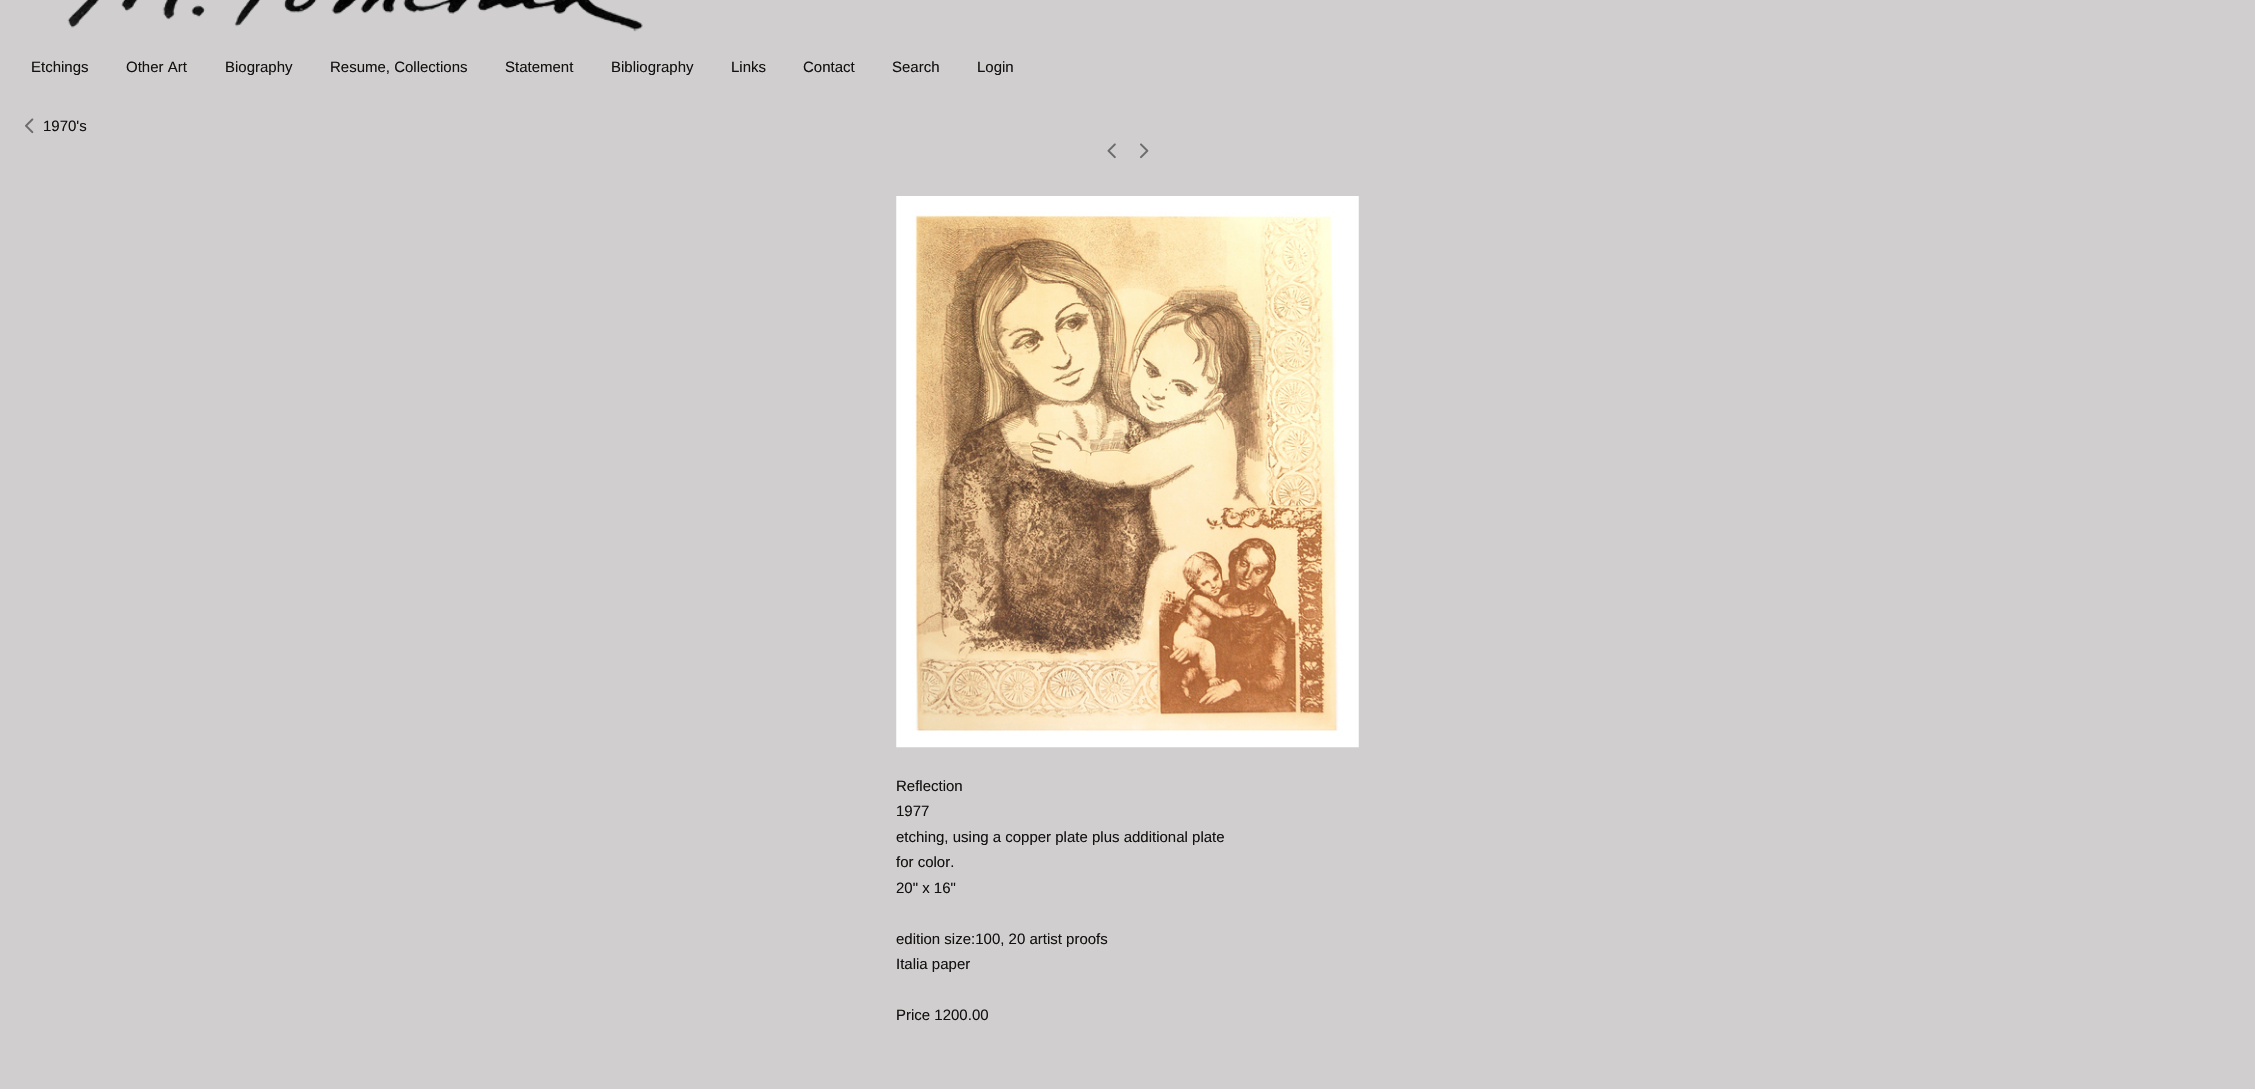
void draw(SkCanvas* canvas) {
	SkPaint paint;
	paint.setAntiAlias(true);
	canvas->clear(0xffd0cece);
	canvas->drawImageRect(SkImages::DeferredFromEncodedData(SkData::MakeFromFileName("img1.png")), SkRect::MakeXYWH(67, 0, 576, 32), SkSamplingOptions());
	SkFont f1(fontMgr->matchFamilyStyle("Liberation Sans", SkFontStyle::Normal()), 15);
	f1.setSubpixel(true);
	paint.setColor(0xff131211);
	canvas->drawString("Etchings", 31, 72, f1, paint);
	canvas->drawString("Other Art", 126, 72, f1, paint);
	canvas->drawString("Biography", 225, 72, f1, paint);
	canvas->drawString("Resume, Collections", 330, 72, f1, paint);
	canvas->drawString("Statement", 505, 72, f1, paint);
	canvas->drawString("Bibliography", 611, 72, f1, paint);
	canvas->drawString("Links", 731, 72, f1, paint);
	canvas->drawString("Contact", 803, 72, f1, paint);
	canvas->drawString("Search", 892, 72, f1, paint);
	canvas->drawString("Login", 977, 72, f1, paint);
	canvas->drawImageRect(SkImages::DeferredFromEncodedData(SkData::MakeFromFileName("img2.png")), SkRect::MakeXYWH(25, 118, 9, 16), SkSamplingOptions());
	canvas->drawString("1970's", 43, 131, f1, paint);
	canvas->drawImageRect(SkImages::DeferredFromEncodedData(SkData::MakeFromFileName("img3.png")), SkRect::MakeXYWH(1107, 143, 9, 16), SkSamplingOptions());
	canvas->drawImageRect(SkImages::DeferredFromEncodedData(SkData::MakeFromFileName("img4.png")), SkRect::MakeXYWH(1140, 143, 9, 16), SkSamplingOptions());
	canvas->drawImageRect(SkImages::DeferredFromEncodedData(SkData::MakeFromFileName("img5.png")), SkRect::MakeXYWH(896, 196, 463, 552), SkSamplingOptions());
	canvas->drawString("Reflection", 896, 791, f1, paint);
	canvas->drawString("1977", 896, 816, f1, paint);
	canvas->drawString("etching, using a copper plate plus additional plate", 896, 842, f1, paint);
	canvas->drawString("for color.", 896, 867, f1, paint);
	canvas->drawString("20\" x 16\"", 896, 893, f1, paint);
	canvas->drawString("edition size:100, 20 artist proofs", 896, 944, f1, paint);
	canvas->drawString("Italia paper", 896, 969, f1, paint);
	canvas->drawString("Price 1200.00", 896, 1020, f1, paint);
}
